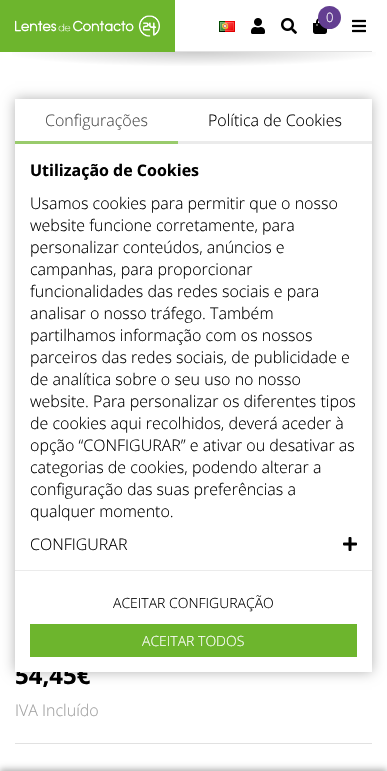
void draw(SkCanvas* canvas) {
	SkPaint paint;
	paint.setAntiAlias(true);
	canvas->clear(0xffffffff);
	paint.setColor(0xffe1e1e1);
	canvas->drawRect(SkRect::MakeXYWH(175, 51, 197, 1), paint);
	paint.setColor(0xff6db52d);
	canvas->drawRect(SkRect::MakeXYWH(0, 0, 175, 52), paint);
	canvas->drawImageRect(SkImages::DeferredFromEncodedData(SkData::MakeFromFileName("img1.png")), SkRect::MakeXYWH(15, 15, 145, 22), SkSamplingOptions());
	canvas->drawImageRect(SkImages::DeferredFromEncodedData(SkData::MakeFromFileName("img2.png")), SkRect::MakeXYWH(219, 21, 16, 11), SkSamplingOptions());
	canvas->drawImageRect(SkImages::DeferredFromEncodedData(SkData::MakeFromFileName("img3.png")), SkRect::MakeXYWH(251, 18, 14, 16), SkSamplingOptions());
	canvas->drawImageRect(SkImages::DeferredFromEncodedData(SkData::MakeFromFileName("img4.png")), SkRect::MakeXYWH(281, 18, 16, 16), SkSamplingOptions());
	canvas->drawImageRect(SkImages::DeferredFromEncodedData(SkData::MakeFromFileName("img5.png")), SkRect::MakeXYWH(313, 18, 14, 16), SkSamplingOptions());
	paint.setColor(0xff633e91);
	canvas->drawCircle(329.5, 17.5, 11.5, paint);
	SkFont f1(fontMgr->matchFamilyStyle("Open Sans", SkFontStyle(300, SkFontStyle::kNormal_Width, SkFontStyle::kUpright_Slant)), 13);
	f1.setSubpixel(true);
	paint.setColor(0xffffffff);
	canvas->drawString("0", 326, 22, f1, paint);
	canvas->drawImageRect(SkImages::DeferredFromEncodedData(SkData::MakeFromFileName("img6.png")), SkRect::MakeXYWH(352, 19, 14, 14), SkSamplingOptions());
	{
		const SkColor colors[] = {0xffcccccc, 0xffffffff};
		const float stops[] = {0, 0.7};
		SkMatrix m = SkMatrix::Translate(194, 52).preScale(274, 21);
		paint.setShader(SkGradientShader::MakeRadial({0, 0}, 1, colors, stops, 2, SkTileMode::kClamp, 0, &m));
		paint.setAlpha(255);
	}
	canvas->drawRect(SkRect::MakeXYWH(12, 52, 364, 14), paint);
	paint.setShader(nullptr);
	paint.setColor(0x4d000000);
	paint.setMaskFilter(SkMaskFilter::MakeBlur(kNormal_SkBlurStyle, 6));
	canvas->drawRect(SkRect::MakeXYWH(15, 99, 357, 573), paint);
	paint.setMaskFilter(nullptr);
	SkFont f2(fontMgr->matchFamilyStyle("Open Sans", SkFontStyle::Bold()), 24);
	f2.setSubpixel(true);
	paint.setColor(0xff000000);
	canvas->drawString("54,45€", 15, 684, f2, paint);
	paint.setColor(0xffffffff);
	canvas->drawRect(SkRect::MakeXYWH(15, 99, 357, 573), paint);
	paint.setColor(0xff99cb6c);
	canvas->drawRect(SkRect::MakeXYWH(15, 141, 163, 3), paint);
	SkFont f3(fontMgr->matchFamilyStyle("Open Sans", SkFontStyle(300, SkFontStyle::kNormal_Width, SkFontStyle::kUpright_Slant)), 16);
	f3.setSubpixel(true);
	paint.setColor(0xff4d4d4d);
	canvas->drawString("Configurações", 45, 126, f3, paint);
	paint.setColor(0xffebebeb);
	canvas->drawRect(SkRect::MakeXYWH(178, 141, 194, 3), paint);
	paint.setColor(0xff000000);
	canvas->drawString("Política de Cookies", 208, 126, f3, paint);
	SkFont f4(fontMgr->matchFamilyStyle("Open Sans", SkFontStyle::Bold()), 16);
	f4.setSubpixel(true);
	canvas->drawString("Utilização de Cookies", 30, 176, f4, paint);
	canvas->drawString("Usamos cookies para permitir que o nosso", 30, 209, f3, paint);
	canvas->drawString("website funcione corretamente, para", 30, 231, f3, paint);
	canvas->drawString("personalizar conteúdos, anúncios e", 30, 253, f3, paint);
	canvas->drawString("campanhas, para proporcionar", 30, 275, f3, paint);
	canvas->drawString("funcionalidades das redes sociais e para", 30, 297, f3, paint);
	canvas->drawString("analisar o nosso tráfego. Também", 30, 319, f3, paint);
	canvas->drawString("partilhamos informação com os nossos", 30, 341, f3, paint);
	canvas->drawString("parceiros das redes sociais, de publicidade e", 30, 363, f3, paint);
	canvas->drawString("de analítica sobre o seu uso no nosso", 30, 385, f3, paint);
	canvas->drawString("website. Para personalizar os diferentes tipos", 30, 407, f3, paint);
	canvas->drawString("de cookies aqui recolhidos, deverá aceder à", 30, 429, f3, paint);
	canvas->drawString("opção “CONFIGURAR” e ativar ou desativar as", 30, 451, f3, paint);
	canvas->drawString("categorias de cookies, podendo alterar a", 30, 473, f3, paint);
	canvas->drawString("configuração das suas preferências a", 30, 495, f3, paint);
	canvas->drawString("qualquer momento.", 30, 517, f3, paint);
	canvas->drawString("CONFIGURAR", 30, 550, f3, paint);
	canvas->drawImageRect(SkImages::DeferredFromEncodedData(SkData::MakeFromFileName("img7.png")), SkRect::MakeXYWH(343, 537, 14, 14), SkSamplingOptions());
	paint.setColor(0xffebebeb);
	canvas->drawRect(SkRect::MakeXYWH(15, 570, 357, 1), paint);
	SkFont f5(fontMgr->matchFamilyStyle("Open Sans", SkFontStyle(300, SkFontStyle::kNormal_Width, SkFontStyle::kUpright_Slant)), 14);
	f5.setSubpixel(true);
	paint.setColor(0xff000000);
	canvas->drawString("ACEITAR CONFIGURAÇÃO", 113, 608, f5, paint);
	paint.setColor(0xff6db52d);
	canvas->drawRect(SkRect::MakeXYWH(30, 624, 327, 33), paint);
	paint.setColor(0xffffffff);
	canvas->drawString("ACEITAR TODOS", 142, 646, f5, paint);
	paint.setColor(0xffa1a1a1);
	canvas->drawString("IVA Incluído", 15, 716, f3, paint);
	paint.setColor(0xffe1e1e1);
	canvas->drawRect(SkRect::MakeXYWH(15, 743, 357, 1), paint);
	paint.setColor(0x4d000000);
	paint.setMaskFilter(SkMaskFilter::MakeBlur(kNormal_SkBlurStyle, 3));
	canvas->drawRect(SkRect::MakeXYWH(0, 769, 387, 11), paint);
	paint.setMaskFilter(nullptr);
}
